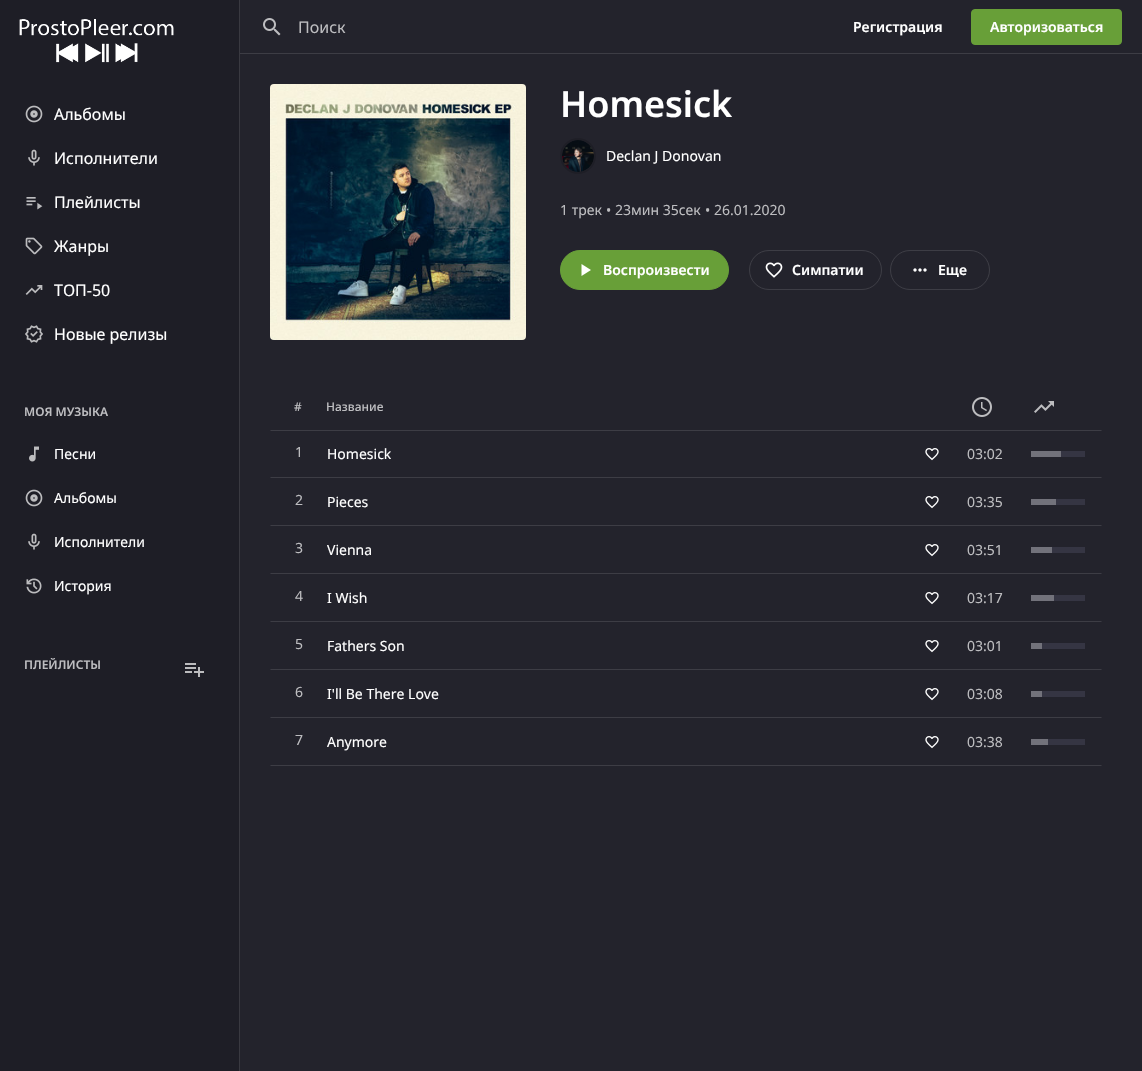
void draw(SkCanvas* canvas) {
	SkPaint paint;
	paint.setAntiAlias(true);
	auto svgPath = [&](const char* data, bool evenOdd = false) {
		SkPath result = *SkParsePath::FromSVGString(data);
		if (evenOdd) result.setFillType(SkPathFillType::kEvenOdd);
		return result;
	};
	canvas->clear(0xff23232c);
	paint.setColor(0xff3d3d45);
	canvas->drawRect(SkRect::MakeXYWH(240, 53, 902, 1), paint);
	canvas->drawImageRect(SkImages::DeferredFromEncodedData(SkData::MakeFromFileName("img1.png")), SkRect::MakeXYWH(263, 18, 18, 18), SkSamplingOptions());
	SkFont f1(fontMgr->matchFamilyStyle("Noto Sans", SkFontStyle::Normal()), 16);
	f1.setSubpixel(true);
	paint.setColor(0xffbdbdc0);
	canvas->drawString("Поиск", 298, 33, f1, paint);
	SkFont f2(fontMgr->matchFamilyStyle("Noto Sans", SkFontStyle(600, SkFontStyle::kNormal_Width, SkFontStyle::kUpright_Slant)), 14);
	f2.setSubpixel(true);
	paint.setColor(0xffffffff);
	canvas->drawString("Регистрация", 853, 32, f2, paint);
	paint.setColor(0xff689f38);
	canvas->drawRoundRect(SkRect::MakeXYWH(971.5, 9.5, 150, 35), 3.5, 3.5, paint);
	paint.setStroke(true);
	paint.setStrokeWidth(1);
	canvas->drawRoundRect(SkRect::MakeXYWH(971.5, 9.5, 150, 35), 3.5, 3.5, paint);
	paint.setStroke(false);
	paint.setColor(0xffffffff);
	canvas->drawString("Авторизоваться", 990, 32, f2, paint);
	paint.setColor(0xff1e1e26);
	canvas->drawRect(SkRect::MakeXYWH(0, 0, 239, 1071), paint);
	paint.setColor(0xff393940);
	canvas->drawRect(SkRect::MakeXYWH(239, 0, 1, 1071), paint);
	canvas->drawImageRect(SkImages::DeferredFromEncodedData(SkData::MakeFromFileName("img2.png")), SkRect::MakeXYWH(19, 19, 155, 44), SkSamplingOptions());
	canvas->drawImageRect(SkImages::DeferredFromEncodedData(SkData::MakeFromFileName("img3.png")), SkRect::MakeXYWH(25, 105, 18, 18), SkSamplingOptions());
	paint.setColor(0xffffffff);
	canvas->drawString("Альбомы", 54, 120, f1, paint);
	canvas->drawImageRect(SkImages::DeferredFromEncodedData(SkData::MakeFromFileName("img4.png")), SkRect::MakeXYWH(28, 149, 12, 17), SkSamplingOptions());
	canvas->drawString("Исполнители", 54, 164, f1, paint);
	canvas->drawImageRect(SkImages::DeferredFromEncodedData(SkData::MakeFromFileName("img5.png")), SkRect::MakeXYWH(26, 197, 17, 13), SkSamplingOptions());
	canvas->drawString("Плейлисты", 54, 208, f1, paint);
	canvas->drawImageRect(SkImages::DeferredFromEncodedData(SkData::MakeFromFileName("img6.png")), SkRect::MakeXYWH(25, 237, 18, 18), SkSamplingOptions());
	canvas->drawString("Жанры", 54, 252, f1, paint);
	canvas->drawImageRect(SkImages::DeferredFromEncodedData(SkData::MakeFromFileName("img7.png")), SkRect::MakeXYWH(25, 285, 18, 10), SkSamplingOptions());
	canvas->drawString("ТОП-50", 54, 296, f1, paint);
	canvas->drawImageRect(SkImages::DeferredFromEncodedData(SkData::MakeFromFileName("img8.png")), SkRect::MakeXYWH(25, 325, 18, 18), SkSamplingOptions());
	canvas->drawString("Новые релизы", 54, 340, f1, paint);
	SkFont f3(fontMgr->matchFamilyStyle("Noto Sans", SkFontStyle(600, SkFontStyle::kNormal_Width, SkFontStyle::kUpright_Slant)), 12);
	f3.setSubpixel(true);
	paint.setColor(0xffbdbdc0);
	canvas->drawString("МОЯ МУЗЫКА", 24, 416, f3, paint);
	canvas->drawImageRect(SkImages::DeferredFromEncodedData(SkData::MakeFromFileName("img9.png")), SkRect::MakeXYWH(29, 446, 10, 16), SkSamplingOptions());
	SkFont f4(fontMgr->matchFamilyStyle("Noto Sans", SkFontStyle::Normal()), 14);
	f4.setSubpixel(true);
	paint.setColor(0xffffffff);
	canvas->drawString("Песни", 54, 459, f4, paint);
	canvas->drawImageRect(SkImages::DeferredFromEncodedData(SkData::MakeFromFileName("img3.png")), SkRect::MakeXYWH(25, 489, 18, 18), SkSamplingOptions());
	canvas->drawString("Альбомы", 54, 503, f4, paint);
	canvas->drawImageRect(SkImages::DeferredFromEncodedData(SkData::MakeFromFileName("img4.png")), SkRect::MakeXYWH(28, 533, 12, 17), SkSamplingOptions());
	canvas->drawString("Исполнители", 54, 547, f4, paint);
	canvas->drawImageRect(SkImages::DeferredFromEncodedData(SkData::MakeFromFileName("img10.png")), SkRect::MakeXYWH(26, 578, 16, 16), SkSamplingOptions());
	canvas->drawString("История", 54, 591, f4, paint);
	paint.setColor(0xffbdbdc0);
	canvas->drawString("ПЛЕЙЛИСТЫ", 24, 669, f3, paint);
	canvas->drawImageRect(SkImages::DeferredFromEncodedData(SkData::MakeFromFileName("img11.png")), SkRect::MakeXYWH(185, 663, 19, 14), SkSamplingOptions());
	canvas->drawImageRect(SkImages::DeferredFromEncodedData(SkData::MakeFromFileName("img12.png")), SkRect::MakeXYWH(270, 84, 256, 256), SkSamplingOptions());
	SkFont f5(fontMgr->matchFamilyStyle("Noto Sans", SkFontStyle(600, SkFontStyle::kNormal_Width, SkFontStyle::kUpright_Slant)), 36);
	f5.setSubpixel(true);
	paint.setColor(0xffffffff);
	canvas->drawString("Homesick", 560, 117, f5, paint);
	paint.setColor(0xff1e1e26);
	canvas->drawCircle(578, 156, 18, paint);
	canvas->drawImageRect(SkImages::DeferredFromEncodedData(SkData::MakeFromFileName("img13.png")), SkRect::MakeXYWH(562, 140, 32, 32), SkSamplingOptions());
	paint.setColor(0xffffffff);
	canvas->drawString("Declan J Donovan", 606, 161, f4, paint);
	paint.setColor(0xffbdbdc0);
	canvas->drawString("1 трек", 560, 215, f4, paint);
	canvas->drawString("•", 606, 215, f4, paint);
	canvas->drawString("23мин 35сек", 615, 215, f4, paint);
	canvas->drawString("•", 705, 215, f4, paint);
	canvas->drawString("26.01.2020", 714, 215, f4, paint);
	paint.setColor(0xff689f38);
	canvas->drawRoundRect(SkRect::MakeXYWH(560.5, 250.5, 168, 39), 19.5, 19.5, paint);
	paint.setStroke(true);
	canvas->drawRoundRect(SkRect::MakeXYWH(560.5, 250.5, 168, 39), 19.5, 19.5, paint);
	paint.setStroke(false);
	paint.setColor(0xffffffff);
	canvas->drawPath(svgPath("M581.5 276V264L591 270Z"), paint);
	canvas->drawString("Воспроизвести", 603, 275, f2, paint);
	paint.setStroke(true);
	paint.setColor(0xff3d3d45);
	canvas->drawRoundRect(SkRect::MakeXYWH(749.5, 250.5, 132, 39), 19.5, 19.5, paint);
	canvas->drawImageRect(SkImages::DeferredFromEncodedData(SkData::MakeFromFileName("img14.png")), SkRect::MakeXYWH(765, 262, 18, 16), SkSamplingOptions());
	paint.setStroke(false);
	paint.setColor(0xffffffff);
	canvas->drawString("Симпатии", 792, 275, f2, paint);
	paint.setStroke(true);
	paint.setColor(0xff3d3d45);
	canvas->drawRoundRect(SkRect::MakeXYWH(890.5, 250.5, 99, 39), 19.5, 19.5, paint);
	canvas->drawImageRect(SkImages::DeferredFromEncodedData(SkData::MakeFromFileName("img15.png")), SkRect::MakeXYWH(913, 268, 14, 4), SkSamplingOptions());
	paint.setStroke(false);
	paint.setColor(0xffffffff);
	canvas->drawString("Еще", 938, 275, f2, paint);
	SkFont f6(fontMgr->matchFamilyStyle("Noto Sans", SkFontStyle(500, SkFontStyle::kNormal_Width, SkFontStyle::kUpright_Slant)), 12);
	f6.setSubpixel(true);
	paint.setColor(0xffbdbdc0);
	canvas->drawString("#", 294, 411, f6, paint);
	canvas->drawString("Название", 326, 411, f6, paint);
	canvas->drawImageRect(SkImages::DeferredFromEncodedData(SkData::MakeFromFileName("img16.png")), SkRect::MakeXYWH(972, 397, 20, 20), SkSamplingOptions());
	canvas->drawImageRect(SkImages::DeferredFromEncodedData(SkData::MakeFromFileName("img17.png")), SkRect::MakeXYWH(1034, 401, 20, 12), SkSamplingOptions());
	paint.setColor(0xff3d3d45);
	canvas->drawPath(svgPath("M270 430H1102L1101 431H271Z"), paint);
	canvas->drawPath(svgPath("M1102 478H270L271 477H1101Z"), paint);
	paint.setColor(0xffbdbdc0);
	canvas->drawString("1", 295, 457, f4, paint);
	paint.setColor(0xffffffff);
	canvas->drawString("Homesick", 327, 459, f4, paint);
	canvas->drawImageRect(SkImages::DeferredFromEncodedData(SkData::MakeFromFileName("img18.png")), SkRect::MakeXYWH(925, 448, 14, 13), SkSamplingOptions());
	paint.setColor(0xffbdbdc0);
	canvas->drawString("03:02", 967, 459, f4, paint);
	paint.setColor(0xff353543);
	canvas->drawRect(SkRect::MakeXYWH(1061, 451, 24, 6), paint);
	paint.setColor(0xff72727b);
	canvas->drawRect(SkRect::MakeXYWH(1031, 451, 30, 6), paint);
	paint.setColor(0xff3d3d45);
	canvas->drawPath(svgPath("M1102 526H270L271 525H1101Z"), paint);
	paint.setColor(0xffbdbdc0);
	canvas->drawString("2", 295, 505, f4, paint);
	paint.setColor(0xffffffff);
	canvas->drawString("Pieces", 327, 507, f4, paint);
	canvas->drawImageRect(SkImages::DeferredFromEncodedData(SkData::MakeFromFileName("img18.png")), SkRect::MakeXYWH(925, 496, 14, 13), SkSamplingOptions());
	paint.setColor(0xffbdbdc0);
	canvas->drawString("03:35", 967, 507, f4, paint);
	paint.setColor(0xff353543);
	canvas->drawRect(SkRect::MakeXYWH(1056, 499, 29, 6), paint);
	paint.setColor(0xff72727b);
	canvas->drawRect(SkRect::MakeXYWH(1031, 499, 25, 6), paint);
	paint.setColor(0xff3d3d45);
	canvas->drawPath(svgPath("M1102 574H270L271 573H1101Z"), paint);
	paint.setColor(0xffbdbdc0);
	canvas->drawString("3", 295, 553, f4, paint);
	paint.setColor(0xffffffff);
	canvas->drawString("Vienna", 327, 555, f4, paint);
	canvas->drawImageRect(SkImages::DeferredFromEncodedData(SkData::MakeFromFileName("img18.png")), SkRect::MakeXYWH(925, 544, 14, 13), SkSamplingOptions());
	paint.setColor(0xffbdbdc0);
	canvas->drawString("03:51", 967, 555, f4, paint);
	paint.setColor(0xff353543);
	canvas->drawRect(SkRect::MakeXYWH(1052, 547, 33, 6), paint);
	paint.setColor(0xff72727b);
	canvas->drawRect(SkRect::MakeXYWH(1031, 547, 21, 6), paint);
	paint.setColor(0xff3d3d45);
	canvas->drawPath(svgPath("M1102 622H270L271 621H1101Z"), paint);
	paint.setColor(0xffbdbdc0);
	canvas->drawString("4", 295, 601, f4, paint);
	paint.setColor(0xffffffff);
	canvas->drawString("I Wish", 327, 603, f4, paint);
	canvas->drawImageRect(SkImages::DeferredFromEncodedData(SkData::MakeFromFileName("img18.png")), SkRect::MakeXYWH(925, 592, 14, 13), SkSamplingOptions());
	paint.setColor(0xffbdbdc0);
	canvas->drawString("03:17", 967, 603, f4, paint);
	paint.setColor(0xff353543);
	canvas->drawRect(SkRect::MakeXYWH(1054, 595, 31, 6), paint);
	paint.setColor(0xff72727b);
	canvas->drawRect(SkRect::MakeXYWH(1031, 595, 23, 6), paint);
	paint.setColor(0xff3d3d45);
	canvas->drawPath(svgPath("M1102 670H270L271 669H1101Z"), paint);
	paint.setColor(0xffbdbdc0);
	canvas->drawString("5", 295, 649, f4, paint);
	paint.setColor(0xffffffff);
	canvas->drawString("Fathers Son", 327, 651, f4, paint);
	canvas->drawImageRect(SkImages::DeferredFromEncodedData(SkData::MakeFromFileName("img18.png")), SkRect::MakeXYWH(925, 640, 14, 13), SkSamplingOptions());
	paint.setColor(0xffbdbdc0);
	canvas->drawString("03:01", 967, 651, f4, paint);
	paint.setColor(0xff353543);
	canvas->drawRect(SkRect::MakeXYWH(1042, 643, 43, 6), paint);
	paint.setColor(0xff72727b);
	canvas->drawRect(SkRect::MakeXYWH(1031, 643, 11, 6), paint);
	paint.setColor(0xff3d3d45);
	canvas->drawPath(svgPath("M1102 718H270L271 717H1101Z"), paint);
	paint.setColor(0xffbdbdc0);
	canvas->drawString("6", 295, 697, f4, paint);
	paint.setColor(0xffffffff);
	canvas->drawString("I'll Be There Love", 327, 699, f4, paint);
	canvas->drawImageRect(SkImages::DeferredFromEncodedData(SkData::MakeFromFileName("img18.png")), SkRect::MakeXYWH(925, 688, 14, 13), SkSamplingOptions());
	paint.setColor(0xffbdbdc0);
	canvas->drawString("03:08", 967, 699, f4, paint);
	paint.setColor(0xff353543);
	canvas->drawRect(SkRect::MakeXYWH(1042, 691, 43, 6), paint);
	paint.setColor(0xff72727b);
	canvas->drawRect(SkRect::MakeXYWH(1031, 691, 11, 6), paint);
	paint.setColor(0xff3d3d45);
	canvas->drawPath(svgPath("M1102 766H270L271 765H1101Z"), paint);
	paint.setColor(0xffbdbdc0);
	canvas->drawString("7", 295, 745, f4, paint);
	paint.setColor(0xffffffff);
	canvas->drawString("Anymore", 327, 747, f4, paint);
	canvas->drawImageRect(SkImages::DeferredFromEncodedData(SkData::MakeFromFileName("img18.png")), SkRect::MakeXYWH(925, 736, 14, 13), SkSamplingOptions());
	paint.setColor(0xffbdbdc0);
	canvas->drawString("03:38", 967, 747, f4, paint);
	paint.setColor(0xff353543);
	canvas->drawRect(SkRect::MakeXYWH(1048, 739, 37, 6), paint);
	paint.setColor(0xff72727b);
	canvas->drawRect(SkRect::MakeXYWH(1031, 739, 17, 6), paint);
}
